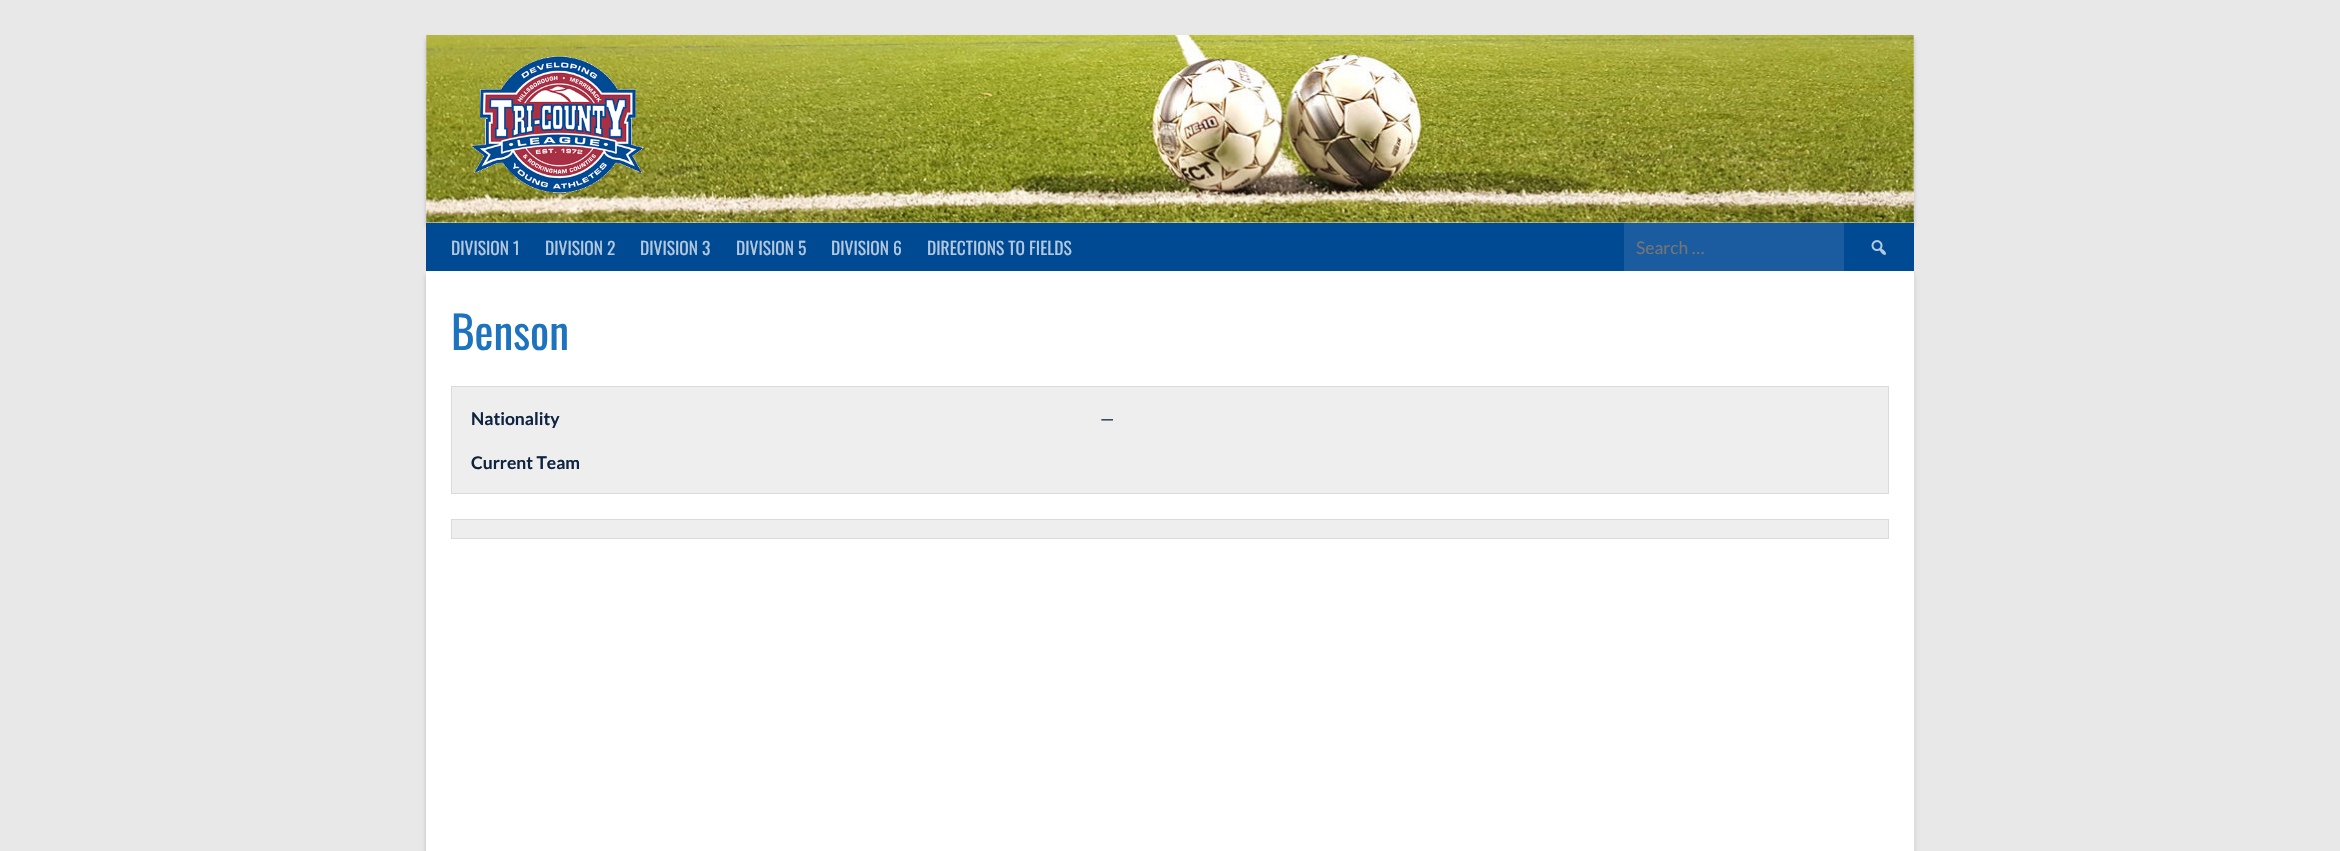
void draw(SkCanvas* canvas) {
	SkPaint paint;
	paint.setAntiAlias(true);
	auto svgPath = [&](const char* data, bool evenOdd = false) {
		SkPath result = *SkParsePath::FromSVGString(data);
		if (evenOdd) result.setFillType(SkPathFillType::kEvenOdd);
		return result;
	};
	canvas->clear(0xffe8e8e8);
	canvas->drawImageRect(SkImages::DeferredFromEncodedData(SkData::MakeFromFileName("img1.png")), SkRect::MakeXYWH(426, 35, 1488, 188), SkSamplingOptions());
	canvas->save();
	canvas->clipPath(svgPath("M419 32H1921V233H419ZM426 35H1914V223H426Z", true), true);
	paint.setColor(0x33000000);
	paint.setMaskFilter(SkMaskFilter::MakeBlur(kNormal_SkBlurStyle, 2));
	canvas->drawRect(SkRect::MakeXYWH(426, 39, 1488, 187), paint);
	paint.setMaskFilter(nullptr);
	canvas->restore();
	canvas->drawImageRect(SkImages::DeferredFromEncodedData(SkData::MakeFromFileName("img2.png")), SkRect::MakeXYWH(471, 56, 173, 137), SkSamplingOptions());
	paint.setMaskFilter(SkMaskFilter::MakeBlur(kNormal_SkBlurStyle, 2));
	canvas->drawRect(SkRect::MakeXYWH(426, 275, 1488, 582), paint);
	paint.setMaskFilter(nullptr);
	paint.setColor(0xff004a94);
	canvas->drawRect(SkRect::MakeXYWH(426, 223, 1488, 48), paint);
	SkFont f1(fontMgr->matchFamilyStyle("Oswald", SkFontStyle::Normal()), 17.5);
	f1.setSubpixel(true);
	paint.setColor(0xffb3c9df);
	canvas->drawString("DIVISION 1", 451, 255, f1, paint);
	canvas->drawString("DIVISION 2", 545, 255, f1, paint);
	canvas->drawString("DIVISION 3", 640, 255, f1, paint);
	canvas->drawString("DIVISION 5", 736, 255, f1, paint);
	canvas->drawString("DIVISION 6", 831, 255, f1, paint);
	canvas->drawString("DIRECTIONS TO FIELDS", 927, 255, f1, paint);
	paint.setColor(0xff1a5c9f);
	canvas->drawRect(SkRect::MakeXYWH(1624, 223, 220, 48), paint);
	SkFont f2(fontMgr->matchFamilyStyle("Lato", SkFontStyle::Normal()), 17.5);
	f2.setSubpixel(true);
	paint.setColor(0xff757575);
	canvas->drawString("Search …", 1636, 254, f2, paint);
	canvas->drawImageRect(SkImages::DeferredFromEncodedData(SkData::MakeFromFileName("img3.png")), SkRect::MakeXYWH(1871, 240, 15, 15), SkSamplingOptions());
	paint.setColor(0xffffffff);
	canvas->drawRect(SkRect::MakeXYWH(426, 271, 1488, 580), paint);
	paint.setColor(0xffe0e0e0);
	canvas->drawPath(svgPath("M428 271H1914V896H1915V271Z"), paint);
	SkFont f3(fontMgr->matchFamilyStyle("Oswald", SkFontStyle::Normal()), 45);
	f3.setSubpixel(true);
	paint.setColor(0xff1e73be);
	canvas->drawString("Benson", 451, 350, f3, paint);
	paint.setColor(0xffeeeeee);
	canvas->drawRect(SkRect::MakeXYWH(451.5, 386.5, 1437, 107), paint);
	paint.setStroke(true);
	paint.setStrokeWidth(1);
	paint.setColor(0xffdadada);
	canvas->drawRect(SkRect::MakeXYWH(451.5, 386.5, 1437, 107), paint);
	SkFont f4(fontMgr->matchFamilyStyle("Lato", SkFontStyle::Bold()), 17.5);
	f4.setSubpixel(true);
	paint.setStroke(false);
	paint.setColor(0xff0e2440);
	canvas->drawString("Nationality", 471, 425, f4, paint);
	canvas->drawString("—", 1100, 425, f2, paint);
	canvas->drawString("Current Team", 471, 469, f4, paint);
	paint.setColor(0xffeeeeee);
	canvas->drawRect(SkRect::MakeXYWH(451.5, 519.5, 1437, 19), paint);
	paint.setStroke(true);
	paint.setColor(0xffdadada);
	canvas->drawRect(SkRect::MakeXYWH(451.5, 519.5, 1437, 19), paint);
}
